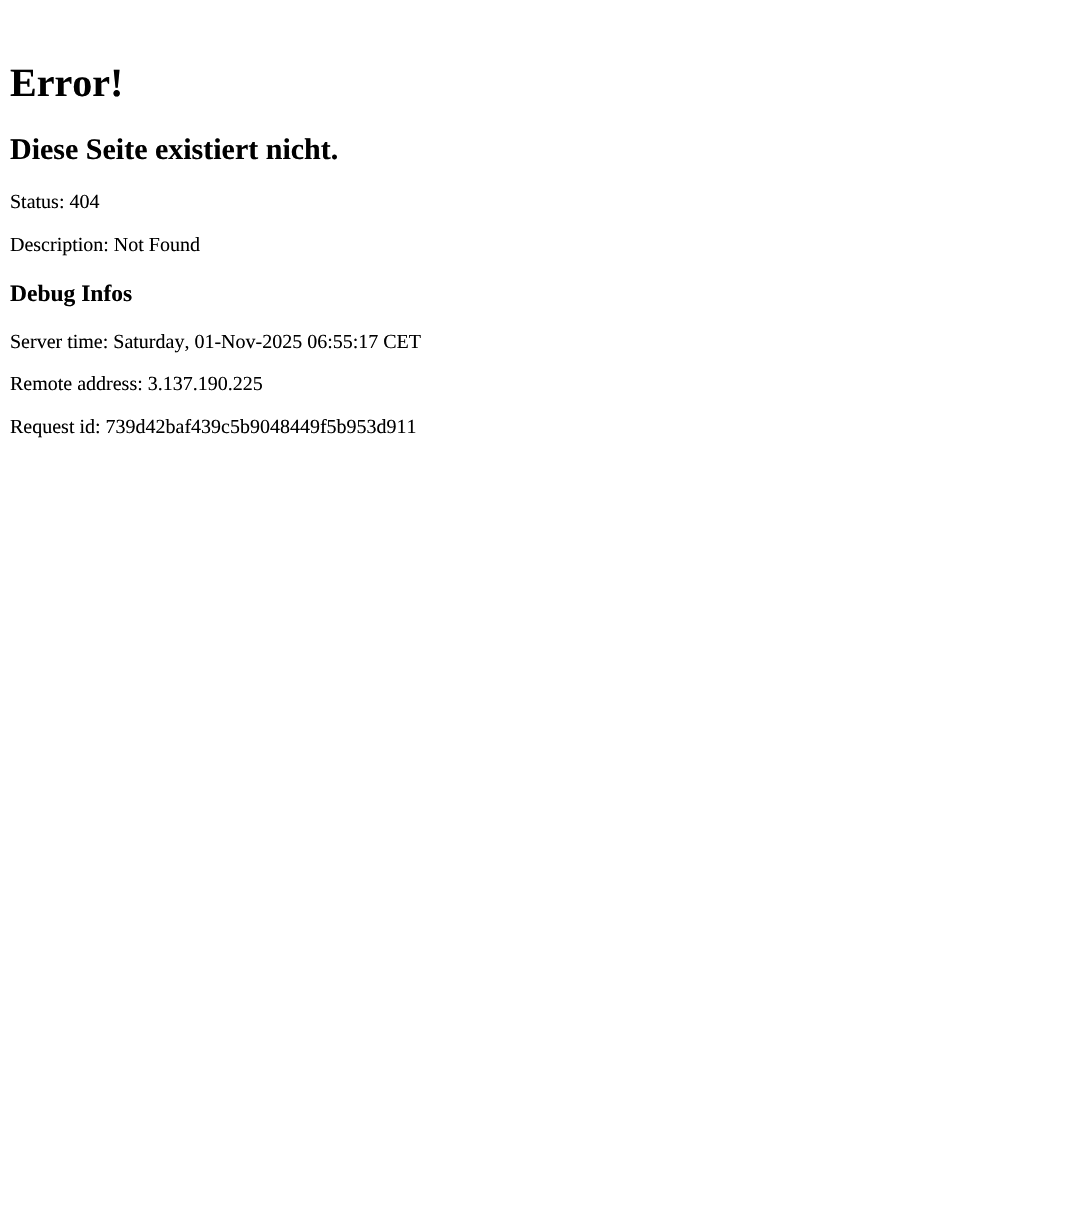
void draw(SkCanvas* canvas) {
	SkPaint paint;
	paint.setAntiAlias(true);
	canvas->clear(0xffffffff);
	SkFont f1(fontMgr->matchFamilyStyle("Liberation Serif", SkFontStyle::Bold()), 40);
	f1.setSubpixel(true);
	paint.setColor(0xff000000);
	canvas->drawString("Error!", 10, 96, f1, paint);
	SkFont f2(fontMgr->matchFamilyStyle("Liberation Serif", SkFontStyle::Bold()), 30);
	f2.setSubpixel(true);
	canvas->drawString("Diese Seite existiert nicht.", 10, 159, f2, paint);
	SkFont f3(fontMgr->matchFamilyStyle("Liberation Serif", SkFontStyle::Normal()), 20);
	f3.setSubpixel(true);
	canvas->drawString("Status: 404", 10, 208, f3, paint);
	canvas->drawString("Description: Not Found", 10, 251, f3, paint);
	SkFont f4(fontMgr->matchFamilyStyle("Liberation Serif", SkFontStyle::Bold()), 23.5);
	f4.setSubpixel(true);
	canvas->drawString("Debug Infos", 10, 301, f4, paint);
	canvas->drawString("Server time: Saturday, 01-Nov-2025 06:55:17 CET", 10, 348, f3, paint);
	canvas->drawString("Remote address: 3.137.190.225", 10, 390, f3, paint);
	canvas->drawString("Request id: 739d42baf439c5b9048449f5b953d911", 10, 433, f3, paint);
}
